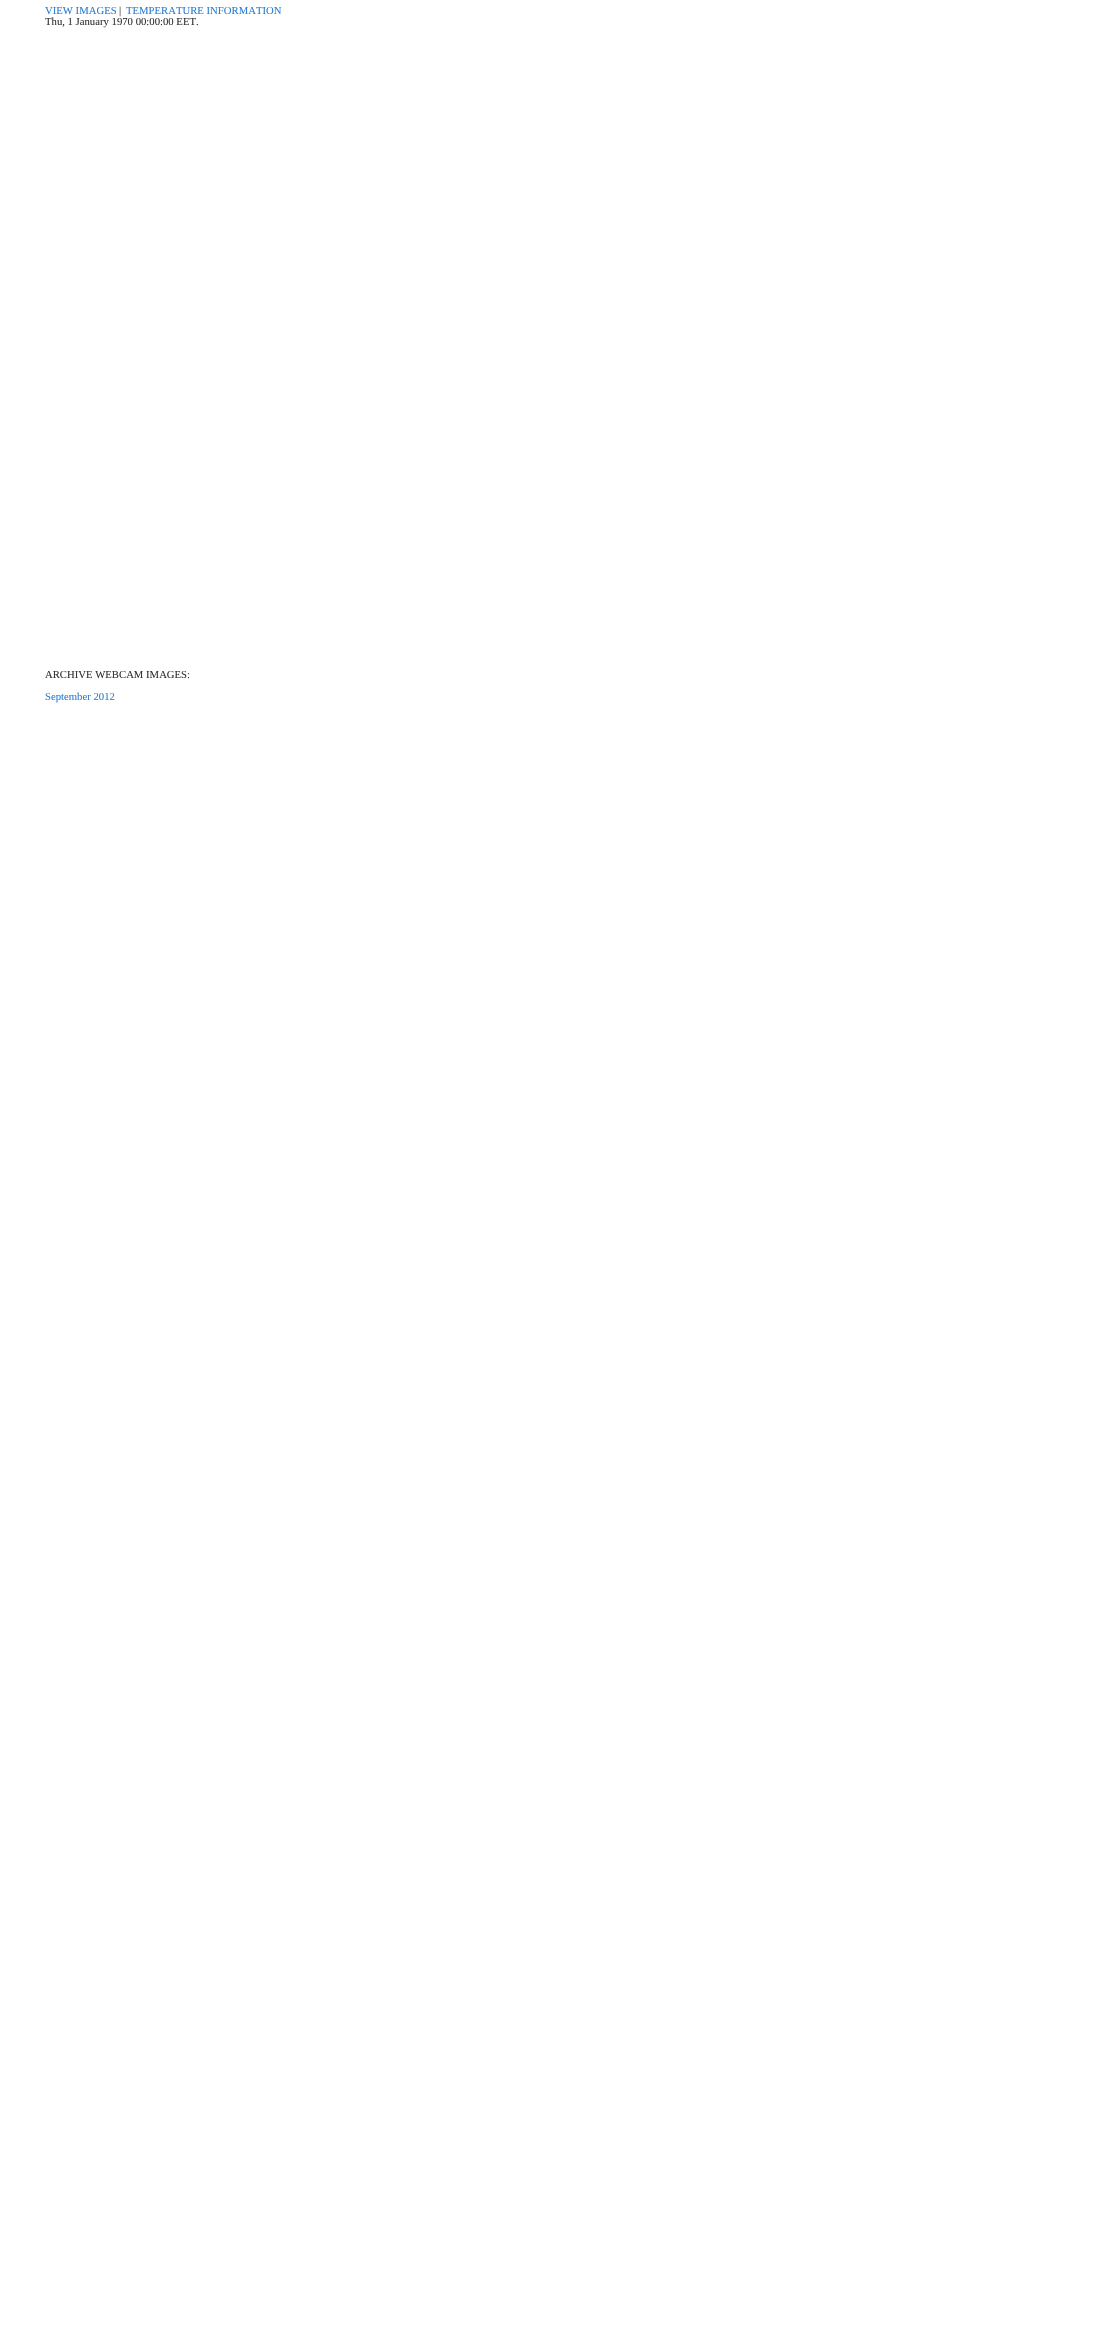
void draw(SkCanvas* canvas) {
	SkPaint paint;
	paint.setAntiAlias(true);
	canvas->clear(0xffffffff);
	SkFont f1(fontMgr->matchFamilyStyle("Liberation Serif", SkFontStyle::Normal()), 10.7);
	f1.setSubpixel(true);
	paint.setColor(0xff2a7ed3);
	canvas->drawString("VIEW IMAGES", 45, 14, f1, paint);
	paint.setColor(0xff333333);
	canvas->drawString("|", 119, 14, f1, paint);
	paint.setColor(0xff2a7ed3);
	canvas->drawString("TEMPERATURE INFORMATION", 126, 14, f1, paint);
	paint.setColor(0xff333333);
	canvas->drawString("Thu, 1 January 1970 00:00:00 EET.", 45, 25, f1, paint);
	canvas->drawString("ARCHIVE WEBCAM IMAGES:", 45, 678, f1, paint);
	paint.setColor(0xff2a7ed3);
	canvas->drawString("September 2012", 45, 700, f1, paint);
}
